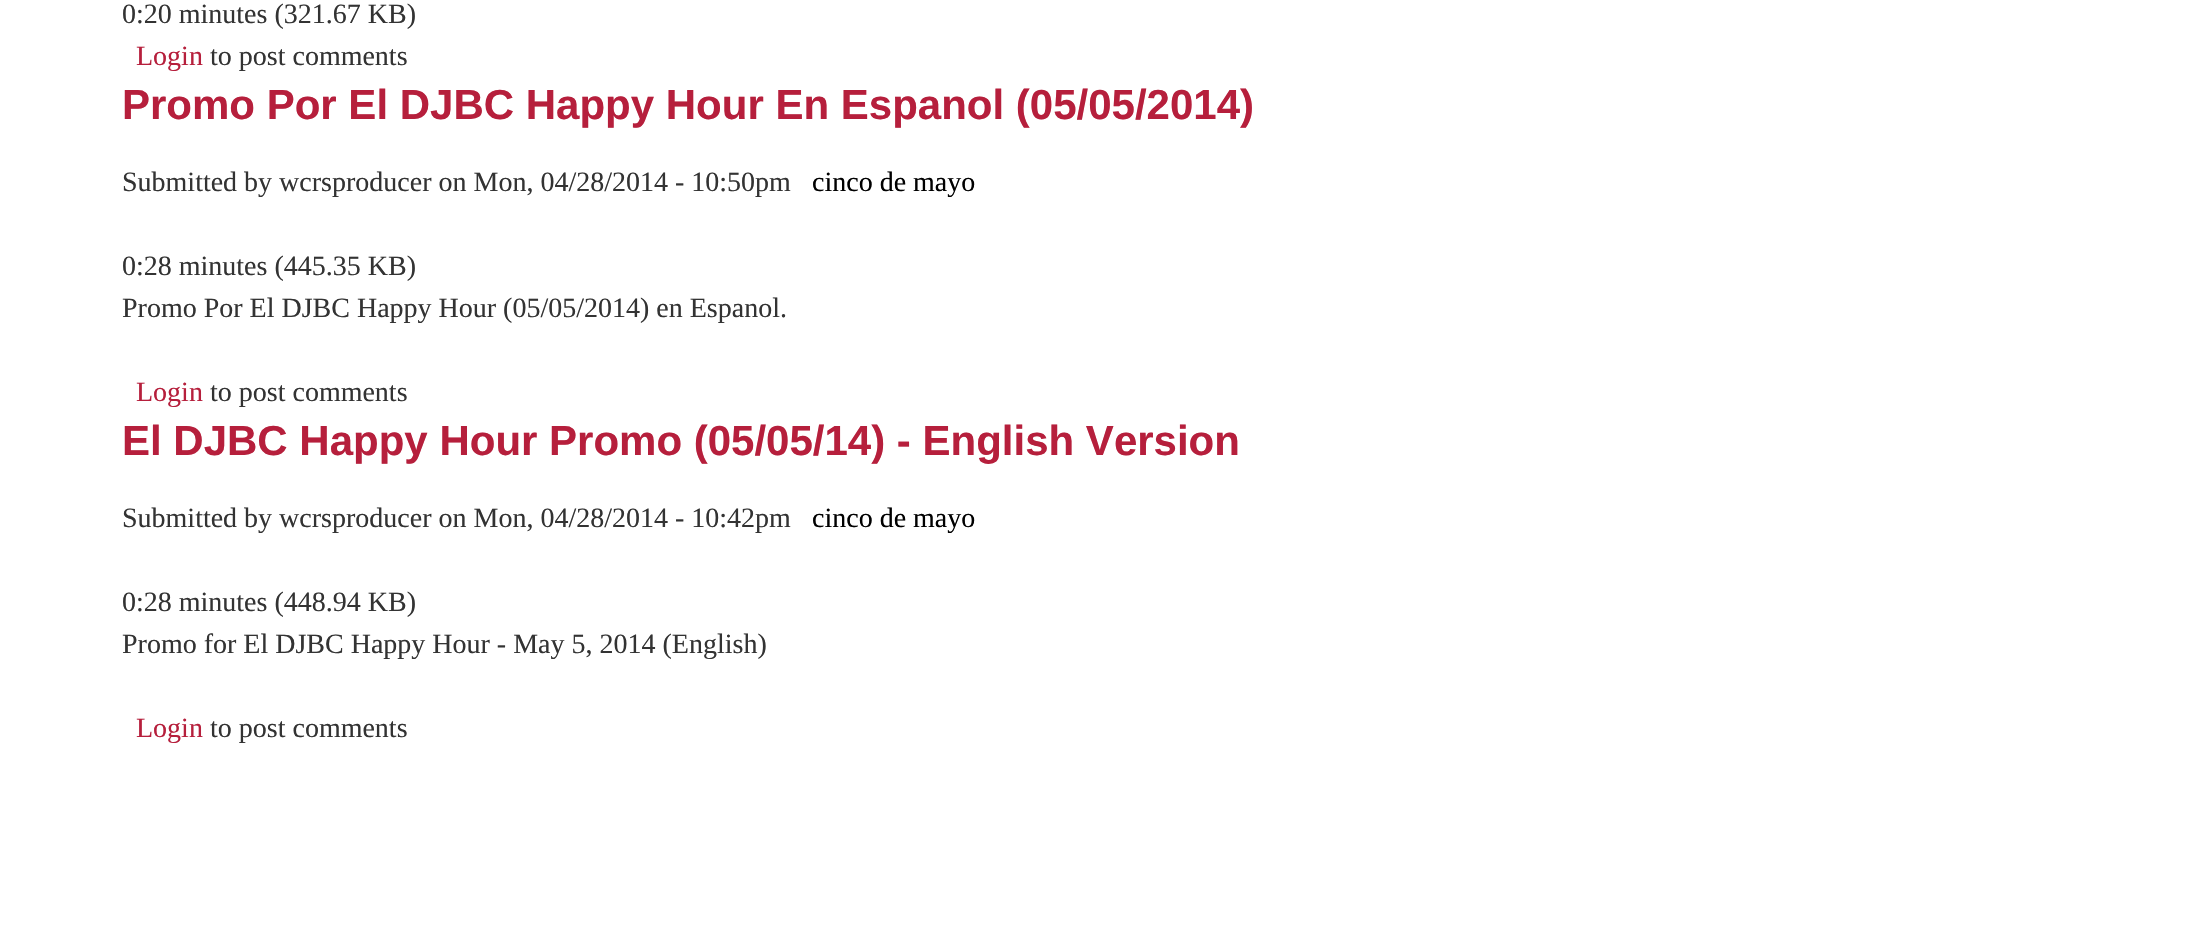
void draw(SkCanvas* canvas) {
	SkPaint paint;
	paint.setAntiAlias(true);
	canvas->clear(0xffffffff);
	SkFont f1(fontMgr->matchFamilyStyle("Liberation Serif", SkFontStyle::Normal()), 28);
	f1.setSubpixel(true);
	paint.setColor(0xff333333);
	canvas->drawString("0:20 minutes (321.67 KB)", 122, 23, f1, paint);
	paint.setColor(0xffb61f3c);
	canvas->drawString("Login", 136, 65, f1, paint);
	paint.setColor(0xff333333);
	canvas->drawString("to post comments", 210, 65, f1, paint);
	SkFont f2(fontMgr->matchFamilyStyle("Arimo", SkFontStyle::Bold()), 42);
	f2.setSubpixel(true);
	paint.setColor(0xffb61f3c);
	canvas->drawString("Promo Por El DJBC Happy Hour En Espanol (05/05/2014)", 122, 119, f2, paint);
	paint.setColor(0xff333333);
	canvas->drawString("Submitted by wcrsproducer on Mon, 04/28/2014 - 10:50pm", 122, 191, f1, paint);
	paint.setColor(0xff000000);
	canvas->drawString("cinco de mayo", 812, 191, f1, paint);
	paint.setColor(0xff333333);
	canvas->drawString("0:28 minutes (445.35 KB)", 122, 275, f1, paint);
	canvas->drawString("Promo Por El DJBC Happy Hour (05/05/2014) en Espanol.", 122, 317, f1, paint);
	paint.setColor(0xffb61f3c);
	canvas->drawString("Login", 136, 401, f1, paint);
	paint.setColor(0xff333333);
	canvas->drawString("to post comments", 210, 401, f1, paint);
	paint.setColor(0xffb61f3c);
	canvas->drawString("El DJBC Happy Hour Promo (05/05/14) - English Version", 122, 455, f2, paint);
	paint.setColor(0xff333333);
	canvas->drawString("Submitted by wcrsproducer on Mon, 04/28/2014 - 10:42pm", 122, 527, f1, paint);
	paint.setColor(0xff000000);
	canvas->drawString("cinco de mayo", 812, 527, f1, paint);
	paint.setColor(0xff333333);
	canvas->drawString("0:28 minutes (448.94 KB)", 122, 611, f1, paint);
	canvas->drawString("Promo for El DJBC Happy Hour - May 5, 2014 (English)", 122, 653, f1, paint);
	paint.setColor(0xffb61f3c);
	canvas->drawString("Login", 136, 737, f1, paint);
	paint.setColor(0xff333333);
	canvas->drawString("to post comments", 210, 737, f1, paint);
}
